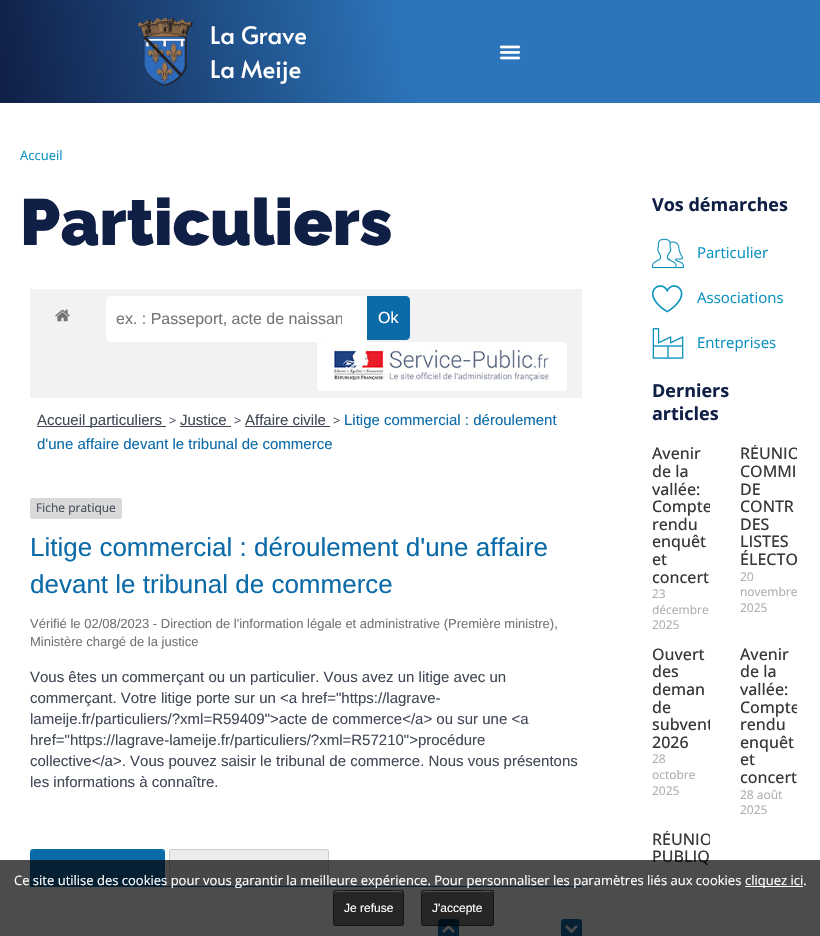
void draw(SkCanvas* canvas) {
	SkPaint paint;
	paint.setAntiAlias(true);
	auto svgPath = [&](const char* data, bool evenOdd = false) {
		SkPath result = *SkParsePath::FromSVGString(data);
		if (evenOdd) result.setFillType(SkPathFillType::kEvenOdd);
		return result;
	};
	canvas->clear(0xffffffff);
	{
		const SkColor colors[] = {0xff2c75ba, 0xff101f46};
		const float stops[] = {0.5, 1};
		const SkPoint ends[] = {{816, -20}, {3.6, 123}};
		paint.setShader(SkGradientShader::MakeLinear(ends, colors, stops, 2, SkTileMode::kClamp));
		paint.setAlpha(255);
	}
	canvas->drawRect(SkRect::MakeXYWH(0, 0, 820, 103), paint);
	canvas->drawImageRect(SkImages::DeferredFromEncodedData(SkData::MakeFromFileName("img1.png")), SkRect::MakeXYWH(137, 17, 57, 70), SkSamplingOptions());
	SkFont f1(fontMgr->matchFamilyStyle("Alata", SkFontStyle::Normal()), 24);
	f1.setSubpixel(true);
	paint.setShader(nullptr);
	paint.setColor(0xffffffff);
	canvas->drawString("La Grave", 210, 44, f1, paint);
	canvas->drawString("La Meije", 210, 78, f1, paint);
	canvas->drawImageRect(SkImages::DeferredFromEncodedData(SkData::MakeFromFileName("img2.png")), SkRect::MakeXYWH(499, 45, 22, 15), SkSamplingOptions());
	SkFont f2(fontMgr->matchFamilyStyle("Open Sans", SkFontStyle::Normal()), 13);
	f2.setSubpixel(true);
	paint.setColor(0xff0791be);
	canvas->drawString("Accueil", 20, 160, f2, paint);
	SkFont f3(fontMgr->matchFamilyStyle("Raleway", SkFontStyle(900, SkFontStyle::kNormal_Width, SkFontStyle::kUpright_Slant)), 65);
	f3.setSubpixel(true);
	paint.setColor(0xff101f46);
	canvas->drawString("Particuliers", 20, 245, f3, paint);
	paint.setColor(0xfff2f2f2);
	canvas->drawRect(SkRect::MakeXYWH(30, 289, 552, 109), paint);
	canvas->drawImageRect(SkImages::DeferredFromEncodedData(SkData::MakeFromFileName("img3.png")), SkRect::MakeXYWH(55, 309, 15, 13), SkSamplingOptions());
	paint.setColor(0xffffffff);
	canvas->drawPath(svgPath("M110 296H367V342H110C108 342 106 340 106 338V300C106 298 108 296 110 296Z"), paint);
	canvas->save();
	canvas->clipRect(SkRect::MakeXYWH(116, 310, 226, 18));
	SkFont f4(fontMgr->matchFamilyStyle("Liberation Sans", SkFontStyle::Normal()), 16);
	f4.setSubpixel(true);
	paint.setColor(0xff757575);
	canvas->drawString("ex. : Passeport, acte de naissan", 116, 324, f4, paint);
	canvas->restore();
	paint.setColor(0xff0b6ba8);
	canvas->drawPath(svgPath("M367 296H406C408 296 410 298 410 300V336C410 338 408 340 406 340H367Z"), paint);
	paint.setColor(0xffffffff);
	canvas->drawString("Ok", 378, 323, f4, paint);
	canvas->drawRoundRect(SkRect::MakeXYWH(317, 342, 250, 49), 4, 4, paint);
	canvas->drawImageRect(SkImages::DeferredFromEncodedData(SkData::MakeFromFileName("img4.png")), SkRect::MakeXYWH(334, 347, 216, 36), SkSamplingOptions());
	paint.setColor(0xff414856);
	canvas->drawRect(SkRect::MakeXYWH(37, 426, 129, 1), paint);
	SkFont f5(fontMgr->matchFamilyStyle("Liberation Sans", SkFontStyle::Normal()), 15);
	f5.setSubpixel(true);
	canvas->drawString("Accueil particuliers", 37, 425, f5, paint);
	canvas->drawString(">", 169, 425, f2, paint);
	canvas->drawString("Justice", 180, 425, f5, paint);
	canvas->drawRect(SkRect::MakeXYWH(180, 426, 51, 1), paint);
	canvas->drawString(">", 234, 425, f2, paint);
	canvas->drawString("Affaire civile", 245, 425, f5, paint);
	canvas->drawRect(SkRect::MakeXYWH(245, 426, 85, 1), paint);
	canvas->drawString(">", 333, 425, f2, paint);
	paint.setColor(0xff0b6ba8);
	canvas->drawString("Litige commercial : déroulement", 344, 425, f5, paint);
	canvas->drawString("d'une affaire devant le tribunal de commerce", 37, 449, f5, paint);
	paint.setColor(0xffd9d9d9);
	canvas->drawRoundRect(SkRect::MakeXYWH(30, 498, 92, 21), 2, 2, paint);
	SkFont f6(fontMgr->matchFamilyStyle("Open Sans", SkFontStyle::Normal()), 12);
	f6.setSubpixel(true);
	paint.setColor(0xff414856);
	canvas->drawString("Fiche pratique", 36, 512, f6, paint);
	SkFont f7(fontMgr->matchFamilyStyle("Liberation Sans", SkFontStyle::Normal()), 26);
	f7.setSubpixel(true);
	paint.setColor(0xff0b6ba8);
	canvas->drawString("Litige commercial : déroulement d'une affaire", 30, 556, f7, paint);
	canvas->drawString("devant le tribunal de commerce", 30, 593, f7, paint);
	SkFont f8(fontMgr->matchFamilyStyle("Liberation Sans", SkFontStyle::Normal()), 13);
	f8.setSubpixel(true);
	paint.setColor(0xff757575);
	canvas->drawString("Vérifié le 02/08/2023 - Direction de l'information légale et administrative (Première ministre),", 30, 628, f8, paint);
	canvas->drawString("Ministère chargé de la justice", 30, 646, f8, paint);
	paint.setColor(0xff414856);
	canvas->drawString("Vous êtes un commerçant ou un particulier. Vous avez un litige avec un", 30, 682, f5, paint);
	canvas->drawString("commerçant. Votre litige porte sur un <a href=\"https://lagrave-", 30, 703, f5, paint);
	canvas->drawString("lameije.fr/particuliers/?xml=R59409\">acte de commerce</a> ou sur une <a", 30, 724, f5, paint);
	canvas->drawString("href=\"https://lagrave-lameije.fr/particuliers/?xml=R57210\">procédure", 30, 745, f5, paint);
	canvas->drawString("collective</a>. Vous pouvez saisir le tribunal de commerce. Nous vous présentons", 30, 766, f5, paint);
	canvas->drawString("les informations à connaître.", 30, 787, f5, paint);
	paint.setColor(0xff0b6ba8);
	canvas->drawPath(svgPath("M33 850H162C163 850 164 851 164 852V886H31V852C31 851 32 850 33 850Z"), paint);
	canvas->drawPath(svgPath("M33 849H162C164 849 165 850 165 852V886H30V852C30 850 31 849 33 849ZM33 850H162C163 850 164 851 164 852V886H31V852C31 851 32 850 33 850Z", true), paint);
	paint.setColor(0xffececec);
	canvas->drawPath(svgPath("M172 849H326C327.5 849 329 850.5 329 852V886H169V852C169 850.5 170.5 849 172 849Z"), paint);
	paint.setColor(0xffcccccc);
	canvas->drawPath(svgPath("M172 849H326C328 849 329 850 329 852V886H169V852C169 850 170 849 172 849ZM172 850H326C327 850 328 851 328 852V886H170V852C170 851 171 850 172 850Z", true), paint);
	paint.setColor(0xff0b6ba8);
	canvas->drawRect(SkRect::MakeXYWH(30, 886, 552, 1), paint);
	canvas->drawRoundRect(SkRect::MakeXYWH(438, 919, 21, 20), 3, 3, paint);
	canvas->drawImageRect(SkImages::DeferredFromEncodedData(SkData::MakeFromFileName("img5.png")), SkRect::MakeXYWH(442, 924, 13, 9), SkSamplingOptions());
	canvas->drawRoundRect(SkRect::MakeXYWH(561, 919, 21, 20), 3, 3, paint);
	canvas->drawImageRect(SkImages::DeferredFromEncodedData(SkData::MakeFromFileName("img6.png")), SkRect::MakeXYWH(565, 925, 13, 9), SkSamplingOptions());
	SkFont f9(fontMgr->matchFamilyStyle("Open Sans", SkFontStyle::Bold()), 18);
	f9.setSubpixel(true);
	paint.setColor(0xff101f46);
	canvas->drawString("Vos démarches", 652, 211, f9, paint);
	canvas->drawImageRect(SkImages::DeferredFromEncodedData(SkData::MakeFromFileName("img7.png")), SkRect::MakeXYWH(652, 238, 32, 31), SkSamplingOptions());
	SkFont f10(fontMgr->matchFamilyStyle("Open Sans", SkFontStyle::Normal()), 15);
	f10.setSubpixel(true);
	paint.setColor(0xff0791be);
	canvas->drawString("Particulier", 697, 258, f10, paint);
	canvas->drawImageRect(SkImages::DeferredFromEncodedData(SkData::MakeFromFileName("img8.png")), SkRect::MakeXYWH(652, 285, 31, 28), SkSamplingOptions());
	canvas->drawString("Associations", 697, 303, f10, paint);
	canvas->drawImageRect(SkImages::DeferredFromEncodedData(SkData::MakeFromFileName("img9.png")), SkRect::MakeXYWH(652, 328, 32, 31), SkSamplingOptions());
	canvas->drawString("Entreprises", 697, 348, f10, paint);
	paint.setColor(0xff101f46);
	canvas->drawString("Derniers", 652, 397, f9, paint);
	canvas->drawString("articles", 652, 420, f9, paint);
	SkFont f11(fontMgr->matchFamilyStyle("Open Sans", SkFontStyle(500, SkFontStyle::kNormal_Width, SkFontStyle::kUpright_Slant)), 16);
	f11.setSubpixel(true);
	paint.setColor(0xff383838);
	canvas->drawString("Avenir", 652, 459, f11, paint);
	canvas->drawString("de la", 652, 477, f11, paint);
	canvas->drawString("vallée:", 652, 495, f11, paint);
	canvas->save();
	canvas->clipRect(SkRect::MakeXYWH(652, 445, 58, 201));
	canvas->drawString("Compte", 652, 512, f11, paint);
	canvas->restore();
	canvas->drawString("rendu", 652, 530, f11, paint);
	canvas->drawString("enquêt", 652, 547, f11, paint);
	canvas->drawString("et", 652, 565, f11, paint);
	canvas->drawString("concert", 652, 583, f11, paint);
	paint.setColor(0xffadadad);
	canvas->drawString("23", 652, 598, f6, paint);
	canvas->drawString("décembre", 652, 614, f6, paint);
	canvas->drawString("2025", 652, 629, f6, paint);
	canvas->save();
	canvas->clipRect(SkRect::MakeXYWH(740, 445, 57, 201));
	paint.setColor(0xff383838);
	canvas->drawString("RÉUNIO", 740, 459, f11, paint);
	canvas->restore();
	canvas->drawString("COMMI", 740, 477, f11, paint);
	canvas->drawString("DE", 740, 495, f11, paint);
	canvas->drawString("CONTR", 740, 512, f11, paint);
	canvas->drawString("DES", 740, 530, f11, paint);
	canvas->drawString("LISTES", 740, 547, f11, paint);
	canvas->drawString("ÉLECTO", 740, 565, f11, paint);
	paint.setColor(0xffadadad);
	canvas->drawString("20", 740, 581, f6, paint);
	canvas->drawString("novembre", 740, 596, f6, paint);
	canvas->drawString("2025", 740, 612, f6, paint);
	paint.setColor(0xff383838);
	canvas->drawString("Ouvert", 652, 660, f11, paint);
	canvas->drawString("des", 652, 677, f11, paint);
	canvas->drawString("deman", 652, 695, f11, paint);
	canvas->drawString("de", 652, 713, f11, paint);
	canvas->save();
	canvas->clipRect(SkRect::MakeXYWH(652, 646, 58, 185));
	canvas->drawString("subvent", 652, 730, f11, paint);
	canvas->restore();
	canvas->drawString("2026", 652, 748, f11, paint);
	paint.setColor(0xffadadad);
	canvas->drawString("28", 652, 763, f6, paint);
	canvas->drawString("octobre", 652, 779, f6, paint);
	canvas->drawString("2025", 652, 795, f6, paint);
	paint.setColor(0xff383838);
	canvas->drawString("Avenir", 740, 660, f11, paint);
	canvas->drawString("de la", 740, 677, f11, paint);
	canvas->drawString("vallée:", 740, 695, f11, paint);
	canvas->save();
	canvas->clipRect(SkRect::MakeXYWH(740, 646, 57, 185));
	canvas->drawString("Compte", 740, 713, f11, paint);
	canvas->restore();
	canvas->drawString("rendu", 740, 730, f11, paint);
	canvas->drawString("enquêt", 740, 748, f11, paint);
	canvas->drawString("et", 740, 765, f11, paint);
	canvas->drawString("concert", 740, 783, f11, paint);
	paint.setColor(0xffadadad);
	canvas->drawString("28 août", 740, 799, f6, paint);
	canvas->drawString("2025", 740, 814, f6, paint);
	canvas->save();
	canvas->clipRect(SkRect::MakeXYWH(652, 831, 58, 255));
	paint.setColor(0xff383838);
	canvas->drawString("RÉUNIO", 652, 845, f11, paint);
	canvas->restore();
	canvas->drawString("PUBLIQ", 652, 862, f11, paint);
	paint.setColor(0xb3000000);
	canvas->drawRect(SkRect::MakeXYWH(0, 860, 820, 76), paint);
	paint.setColor(0xffffffff);
	canvas->drawString("Ce site utilise des cookies pour vous garantir la meilleure expérience. Pour personnaliser les paramètres liés aux cookies", 14, 885, f2, paint);
	canvas->drawRect(SkRect::MakeXYWH(745, 886, 58, 1), paint);
	canvas->drawString("cliquez ici.", 745, 885, f2, paint);
	paint.setColor(0x80000000);
	canvas->drawRoundRect(SkRect::MakeXYWH(333, 890, 71, 36), 3, 3, paint);
	paint.setColor(0xff525252);
	canvas->drawPath(svgPath("M336 892H402L403 894C403 888 394 891 390 891H347C343 891 334 888 334 894C334 893 335 892 336 892Z"), paint);
	paint.setStroke(true);
	paint.setStrokeWidth(1);
	paint.setColor(0x80000000);
	canvas->drawRoundRect(SkRect::MakeXYWH(333.5, 890.5, 70, 35), 2.5, 2.5, paint);
	SkFont f12(fontMgr->matchFamilyStyle("Liberation Sans", SkFontStyle::Normal()), 12);
	f12.setSubpixel(true);
	paint.setStroke(false);
	paint.setColor(0xffffffff);
	canvas->drawString("Je refuse", 344, 912, f12, paint);
	paint.setColor(0x80000000);
	canvas->drawRoundRect(SkRect::MakeXYWH(421, 890, 73, 36), 3, 3, paint);
	paint.setColor(0xff525252);
	canvas->drawPath(svgPath("M424 892H491C492 892 493 893 493 894C493 888 483 891 480 891H435C432 891 422 888 422 894C422 893 423 892 424 892Z"), paint);
	paint.setStroke(true);
	paint.setColor(0x80000000);
	canvas->drawRoundRect(SkRect::MakeXYWH(421.5, 890.5, 72, 35), 2.5, 2.5, paint);
	paint.setStroke(false);
	paint.setColor(0xffffffff);
	canvas->drawString("J'accepte", 432, 912, f12, paint);
}
